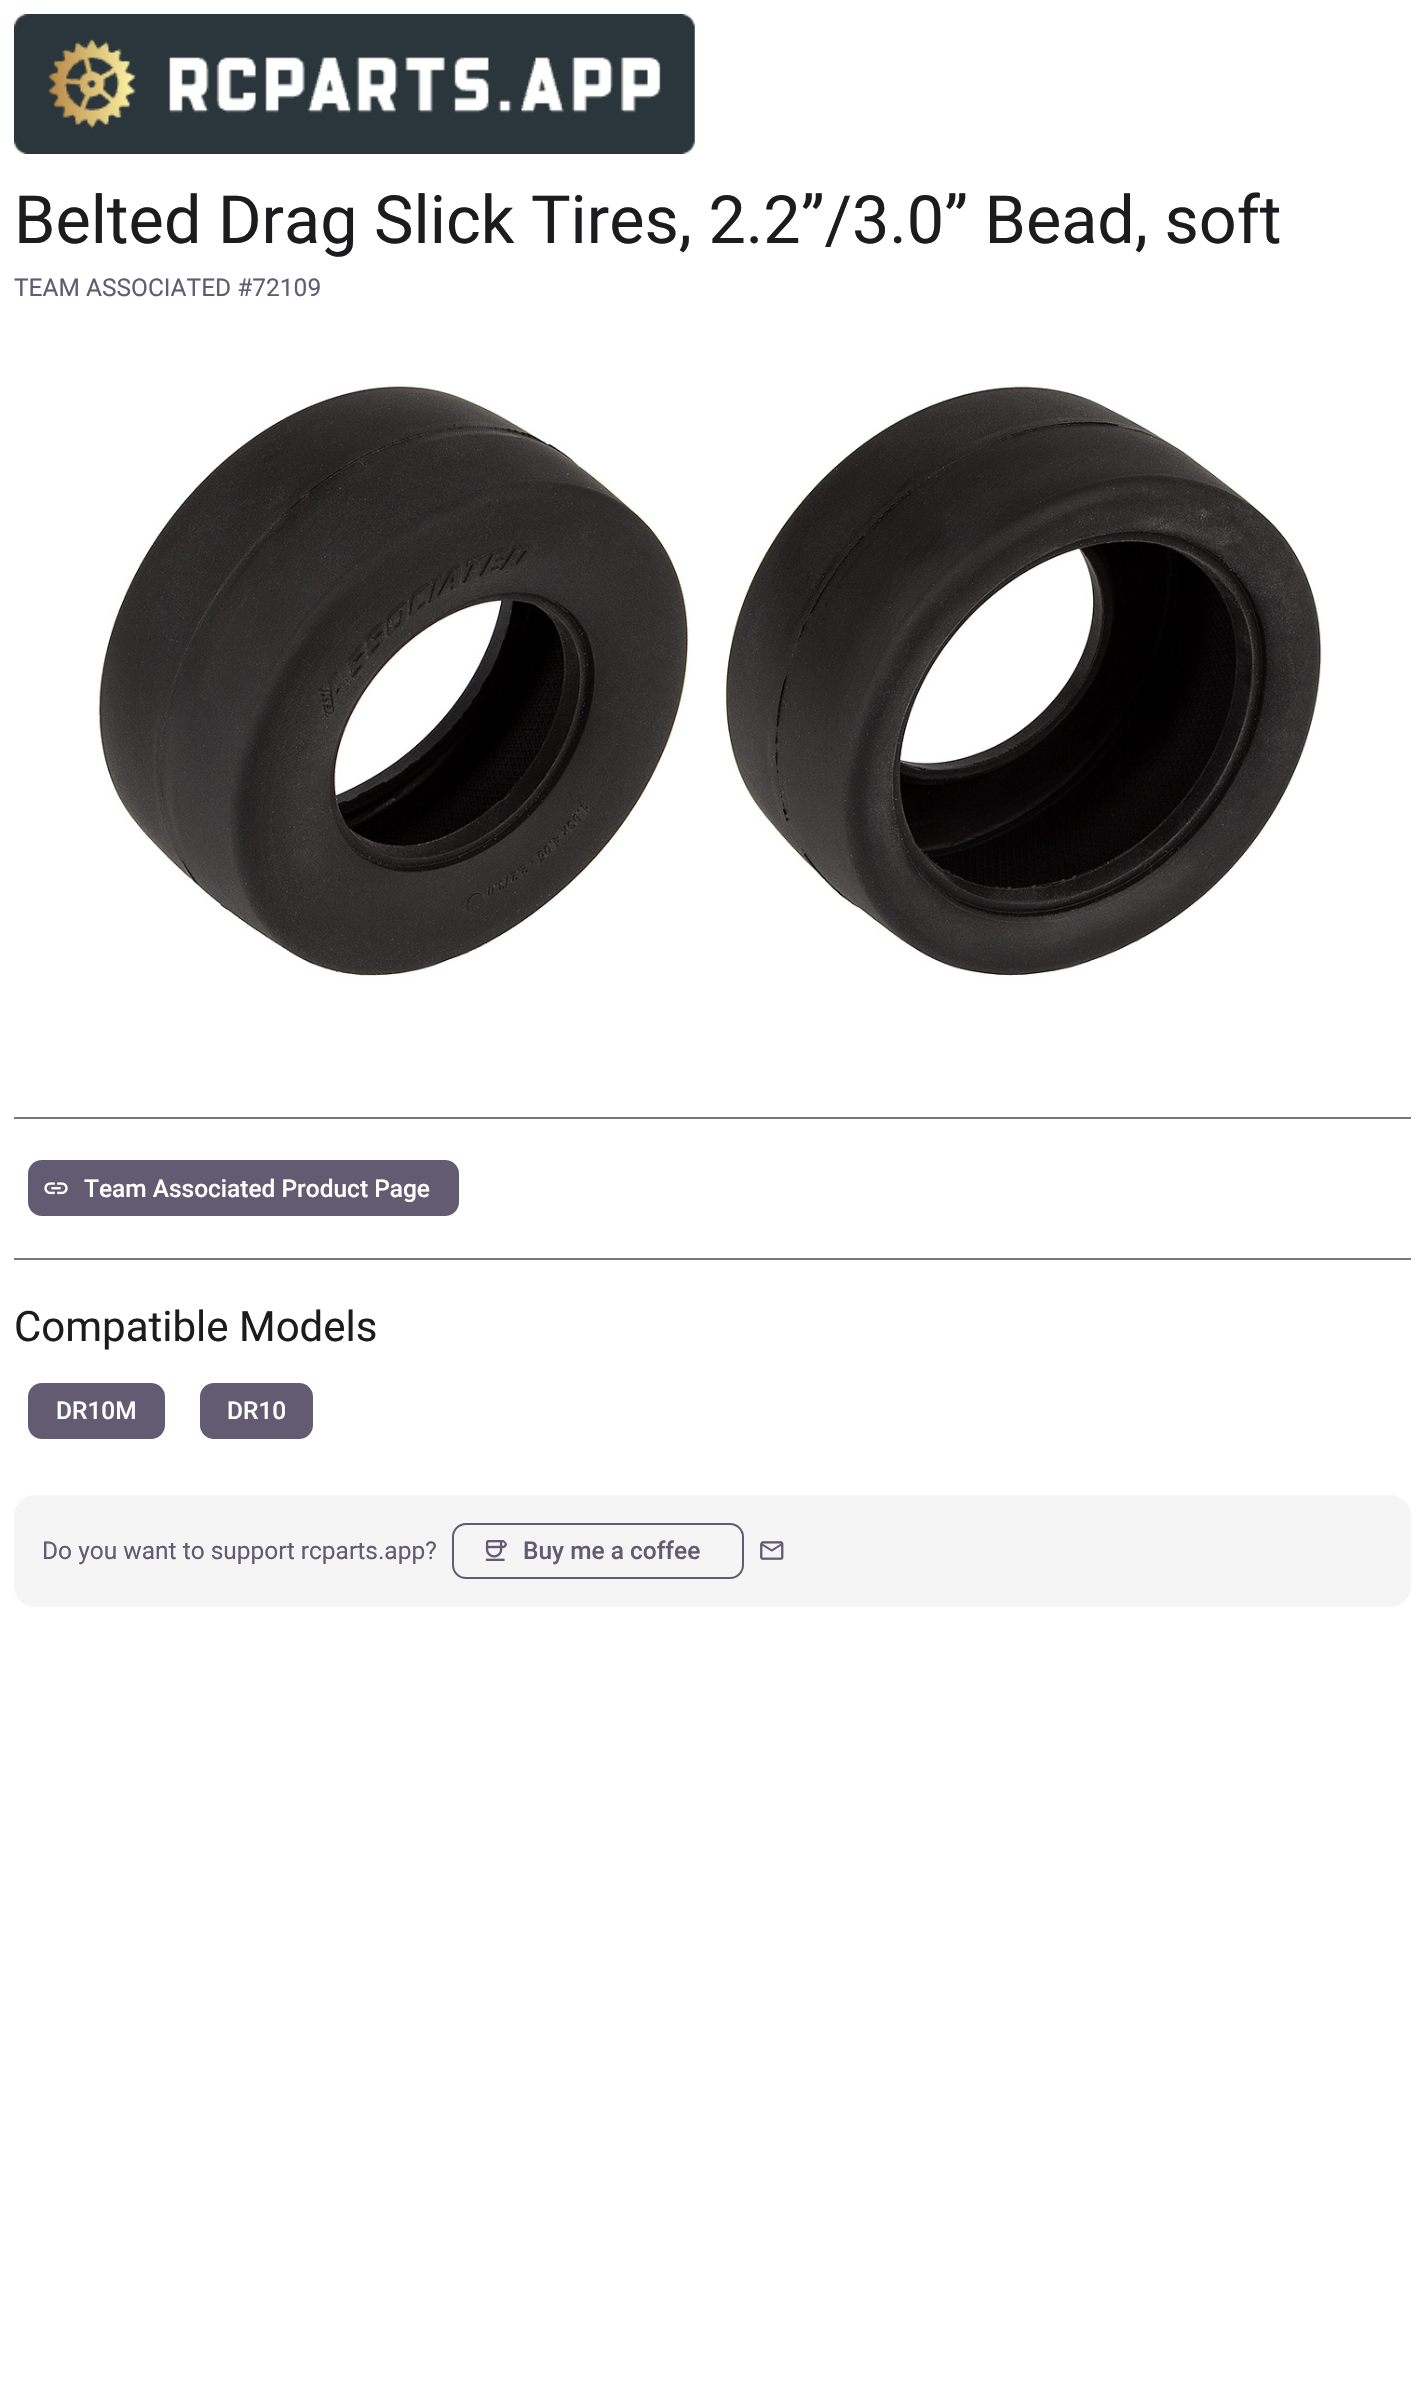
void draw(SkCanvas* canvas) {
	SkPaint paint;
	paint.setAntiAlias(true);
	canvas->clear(0xffffffff);
	canvas->drawImageRect(SkImages::DeferredFromEncodedData(SkData::MakeFromFileName("img1.png")), SkRect::MakeXYWH(14, 14, 681, 140), SkSamplingOptions());
	SkFont f1(fontMgr->matchFamilyStyle("Roboto", SkFontStyle::Normal()), 66.5);
	f1.setSubpixel(true);
	paint.setColor(0xff1c1b1f);
	canvas->drawString("Belted Drag Slick Tires, 2.2”/3.0” Bead, soft", 14, 243, f1, paint);
	SkFont f2(fontMgr->matchFamilyStyle("Roboto", SkFontStyle::Normal()), 24.5);
	f2.setSubpixel(true);
	paint.setColor(0xff625b71);
	canvas->drawString("TEAM ASSOCIATED #72109", 14, 296, f2, paint);
	canvas->drawImageRect(SkImages::DeferredFromEncodedData(SkData::MakeFromFileName("img2.png")), SkRect::MakeXYWH(96, 383, 1227, 595), SkSamplingOptions());
	paint.setColor(0xff79747e);
	canvas->drawRect(SkRect::MakeXYWH(14, 1117, 1397, 2), paint);
	paint.setColor(0xff625b71);
	canvas->drawRoundRect(SkRect::MakeXYWH(28, 1160, 431, 56), 14, 14, paint);
	canvas->drawImageRect(SkImages::DeferredFromEncodedData(SkData::MakeFromFileName("img3.png")), SkRect::MakeXYWH(44, 1182, 24, 13), SkSamplingOptions());
	SkFont f3(fontMgr->matchFamilyStyle("Roboto", SkFontStyle(500, SkFontStyle::kNormal_Width, SkFontStyle::kUpright_Slant)), 24.5);
	f3.setSubpixel(true);
	paint.setColor(0xffffffff);
	canvas->drawString("Team Associated Product Page", 84, 1197, f3, paint);
	paint.setColor(0xff79747e);
	canvas->drawRect(SkRect::MakeXYWH(14, 1258, 1397, 2), paint);
	SkFont f4(fontMgr->matchFamilyStyle("Roboto", SkFontStyle::Normal()), 42);
	f4.setSubpixel(true);
	paint.setColor(0xff1c1b1f);
	canvas->drawString("Compatible Models", 14, 1341, f4, paint);
	paint.setColor(0xff625b71);
	canvas->drawRoundRect(SkRect::MakeXYWH(28, 1383, 137, 56), 14, 14, paint);
	paint.setColor(0xffffffff);
	canvas->drawString("DR10M", 56, 1419, f3, paint);
	paint.setColor(0xff625b71);
	canvas->drawRoundRect(SkRect::MakeXYWH(200, 1383, 113, 56), 14, 14, paint);
	paint.setColor(0xffffffff);
	canvas->drawString("DR10", 227, 1419, f3, paint);
	paint.setColor(0xfff5f5f5);
	canvas->drawRoundRect(SkRect::MakeXYWH(14, 1495, 1397, 112), 21, 21, paint);
	paint.setColor(0xff625b71);
	canvas->drawString("Do you want to support rcparts.app?", 42, 1559, f2, paint);
	paint.setStroke(true);
	paint.setStrokeWidth(2);
	canvas->drawRoundRect(SkRect::MakeXYWH(453, 1524, 290, 54), 13, 13, paint);
	canvas->drawImageRect(SkImages::DeferredFromEncodedData(SkData::MakeFromFileName("img4.png")), SkRect::MakeXYWH(485, 1540, 22, 21), SkSamplingOptions());
	paint.setStroke(false);
	canvas->drawString("Buy me a coffee", 523, 1559, f3, paint);
	canvas->drawImageRect(SkImages::DeferredFromEncodedData(SkData::MakeFromFileName("img5.png")), SkRect::MakeXYWH(760, 1541, 24, 19), SkSamplingOptions());
}
